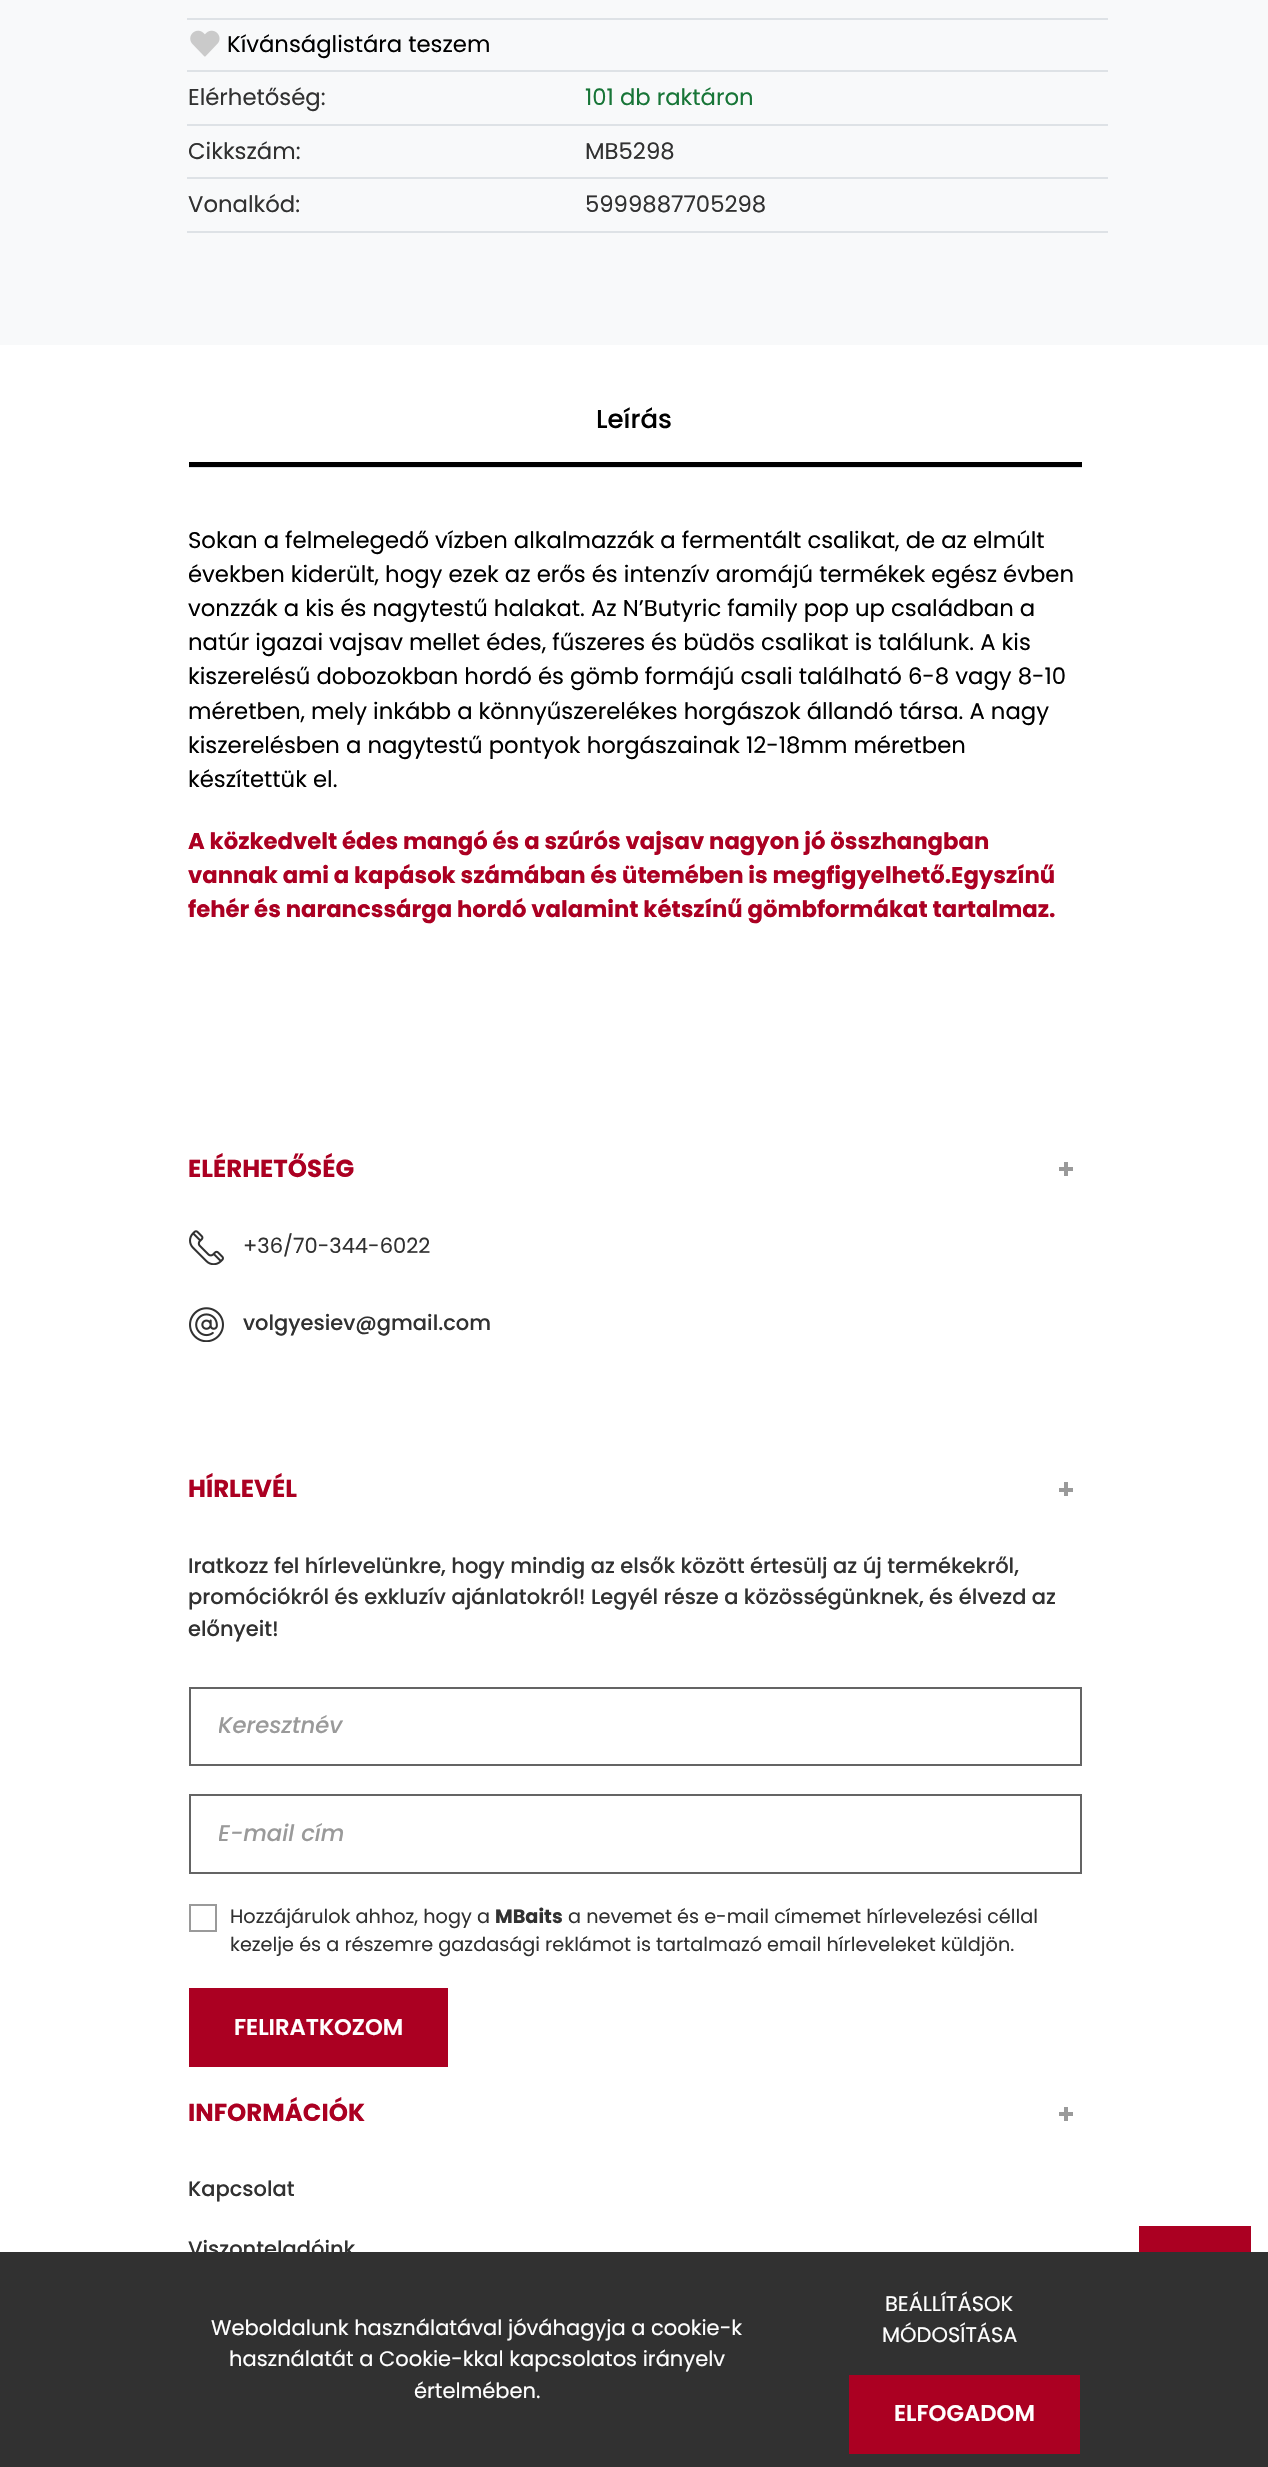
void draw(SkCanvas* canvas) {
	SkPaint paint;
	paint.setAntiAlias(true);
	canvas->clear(0xffffffff);
	paint.setColor(0xfff8f9fa);
	canvas->drawRect(SkRect::MakeXYWH(0, 0, 1268, 345), paint);
	paint.setColor(0xffdee2e6);
	canvas->drawRect(SkRect::MakeXYWH(187, 18, 921, 2), paint);
	canvas->drawImageRect(SkImages::DeferredFromEncodedData(SkData::MakeFromFileName("img1.png")), SkRect::MakeXYWH(190, 30, 30, 27), SkSamplingOptions());
	SkFont f1(fontMgr->matchFamilyStyle("Poppins", SkFontStyle::Normal()), 22.75);
	f1.setSubpixel(true);
	paint.setColor(0xff000000);
	canvas->drawString("Kívánságlistára teszem", 227, 52, f1, paint);
	paint.setColor(0xff313131);
	canvas->drawString("Elérhetőség:", 188, 105, f1, paint);
	paint.setColor(0xffdee2e6);
	canvas->drawRect(SkRect::MakeXYWH(187, 70, 921, 2), paint);
	paint.setColor(0xff177537);
	canvas->drawString("101 db raktáron", 585, 105, f1, paint);
	paint.setColor(0xff313131);
	canvas->drawString("Cikkszám:", 188, 159, f1, paint);
	paint.setColor(0xffdee2e6);
	canvas->drawRect(SkRect::MakeXYWH(187, 124, 921, 2), paint);
	paint.setColor(0xff313131);
	canvas->drawString("MB5298", 585, 159, f1, paint);
	canvas->drawString("Vonalkód:", 188, 212, f1, paint);
	paint.setColor(0xffdee2e6);
	canvas->drawRect(SkRect::MakeXYWH(187, 177, 921, 2), paint);
	canvas->drawRect(SkRect::MakeXYWH(187, 231, 921, 2), paint);
	paint.setColor(0xff313131);
	canvas->drawString("5999887705298", 585, 212, f1, paint);
	paint.setColor(0xffdee2e6);
	canvas->drawRect(SkRect::MakeXYWH(189, 467, 893, 1), paint);
	paint.setColor(0xff000000);
	canvas->drawRect(SkRect::MakeXYWH(189, 462, 893, 5), paint);
	SkFont f2(fontMgr->matchFamilyStyle("Poppins", SkFontStyle(500, SkFontStyle::kNormal_Width, SkFontStyle::kUpright_Slant)), 26);
	f2.setSubpixel(true);
	canvas->drawString("Leírás", 596, 428, f2, paint);
	canvas->drawString("Sokan a felmelegedő vízben alkalmazzák a fermentált csalikat, de az elmúlt", 188, 548, f1, paint);
	canvas->drawString("években kiderült, hogy ezek az erős és intenzív aromájú termékek egész évben", 188, 582, f1, paint);
	canvas->drawString("vonzzák a kis és nagytestű halakat. Az N’Butyric family pop up családban a", 188, 616, f1, paint);
	canvas->drawString("natúr igazai vajsav mellet édes, fűszeres és büdös csalikat is találunk. A kis", 188, 650, f1, paint);
	canvas->drawString("kiszerelésű dobozokban hordó és gömb formájú csali található 6-8 vagy 8-10", 188, 684, f1, paint);
	canvas->drawString("méretben, mely inkább a könnyűszerelékes horgászok állandó társa. A nagy", 188, 719, f1, paint);
	canvas->drawString("kiszerelésben a nagytestű pontyok horgászainak 12-18mm méretben", 188, 753, f1, paint);
	canvas->drawString("készítettük el.", 188, 787, f1, paint);
	SkFont f3(fontMgr->matchFamilyStyle("Poppins", SkFontStyle::Bold()), 22.75);
	f3.setSubpixel(true);
	paint.setColor(0xffab0022);
	canvas->drawString("A közkedvelt édes mangó és a szúrós vajsav nagyon jó összhangban", 188, 849, f3, paint);
	canvas->drawString("vannak ami a kapások számában és ütemében is megfigyelhető.Egyszínű", 188, 883, f3, paint);
	canvas->drawString("fehér és narancssárga hordó valamint kétszínű gömbformákat tartalmaz.", 188, 917, f3, paint);
	SkFont f4(fontMgr->matchFamilyStyle("Poppins", SkFontStyle::Bold()), 24.5);
	f4.setSubpixel(true);
	canvas->drawString("ELÉRHETŐSÉG", 188, 1177, f4, paint);
	paint.setColor(0xff9a9a9a);
	canvas->drawRect(SkRect::MakeXYWH(1064, 1162, 4, 14), paint);
	canvas->drawRect(SkRect::MakeXYWH(1059, 1167, 14, 4), paint);
	canvas->drawImageRect(SkImages::DeferredFromEncodedData(SkData::MakeFromFileName("img2.png")), SkRect::MakeXYWH(189, 1230, 35, 35), SkSamplingOptions());
	SkFont f5(fontMgr->matchFamilyStyle("Poppins", SkFontStyle::Normal()), 21);
	f5.setSubpixel(true);
	paint.setColor(0xff313131);
	canvas->drawString("+36/70-344-6022", 243, 1253, f5, paint);
	canvas->drawImageRect(SkImages::DeferredFromEncodedData(SkData::MakeFromFileName("img3.png")), SkRect::MakeXYWH(189, 1307, 35, 35), SkSamplingOptions());
	SkFont f6(fontMgr->matchFamilyStyle("Poppins", SkFontStyle(500, SkFontStyle::kNormal_Width, SkFontStyle::kUpright_Slant)), 21);
	f6.setSubpixel(true);
	canvas->drawString("volgyesiev@gmail.com", 243, 1330, f6, paint);
	paint.setColor(0xffab0022);
	canvas->drawString("HÍRLEVÉL", 188, 1497, f4, paint);
	paint.setColor(0xff9a9a9a);
	canvas->drawRect(SkRect::MakeXYWH(1064, 1482, 4, 14), paint);
	canvas->drawRect(SkRect::MakeXYWH(1059, 1488, 14, 4), paint);
	paint.setColor(0xff313131);
	canvas->drawString("Iratkozz fel hírlevelünkre, hogy mindig az elsők között értesülj az új termékekről,", 188, 1573, f6, paint);
	canvas->drawString("promóciókról és exkluzív ajánlatokról! Legyél része a közösségünknek, és élvezd az", 188, 1604, f6, paint);
	canvas->drawString("előnyeit!", 188, 1636, f6, paint);
	paint.setStroke(true);
	paint.setStrokeWidth(2);
	paint.setColor(0xff646464);
	canvas->drawRect(SkRect::MakeXYWH(190, 1688, 891, 77), paint);
	canvas->save();
	canvas->clipRect(SkRect::MakeXYWH(219, 1708, 833, 35));
	SkFont f7(fontMgr->matchFamilyStyle("Poppins", SkFontStyle(500, SkFontStyle::kNormal_Width, SkFontStyle::kItalic_Slant)), 22.75);
	f7.setSubpixel(true);
	paint.setStroke(false);
	paint.setColor(0xff9a9a9a);
	canvas->drawString("Keresztnév", 218, 1733, f7, paint);
	canvas->restore();
	paint.setStroke(true);
	paint.setColor(0xff646464);
	canvas->drawRect(SkRect::MakeXYWH(190, 1795, 891, 78), paint);
	canvas->save();
	canvas->clipRect(SkRect::MakeXYWH(219, 1817, 833, 35));
	paint.setStroke(false);
	paint.setColor(0xff9a9a9a);
	canvas->drawString("E-mail cím", 218, 1841, f7, paint);
	canvas->restore();
	paint.setStroke(true);
	canvas->drawRect(SkRect::MakeXYWH(190, 1905, 26, 26), paint);
	SkFont f8(fontMgr->matchFamilyStyle("Poppins", SkFontStyle::Normal()), 19.25);
	f8.setSubpixel(true);
	paint.setStroke(false);
	paint.setColor(0xff313131);
	canvas->drawString("Hozzájárulok ahhoz, hogy a", 230, 1923, f8, paint);
	SkFont f9(fontMgr->matchFamilyStyle("Poppins", SkFontStyle::Bold()), 19.25);
	f9.setSubpixel(true);
	canvas->drawString("MBaits", 495, 1923, f9, paint);
	canvas->drawString("a nevemet és e-mail címemet hírlevelezési céllal", 568, 1923, f8, paint);
	canvas->drawString("kezelje és a részemre gazdasági reklámot is tartalmazó email hírleveleket küldjön.", 230, 1951, f8, paint);
	paint.setColor(0xffab0022);
	canvas->drawRect(SkRect::MakeXYWH(189, 1988, 259, 79), paint);
	SkFont f10(fontMgr->matchFamilyStyle("Poppins", SkFontStyle(600, SkFontStyle::kNormal_Width, SkFontStyle::kUpright_Slant)), 22.75);
	f10.setSubpixel(true);
	paint.setColor(0xffffffff);
	canvas->drawString("FELIRATKOZOM", 234, 2035, f10, paint);
	paint.setColor(0xffab0022);
	canvas->drawString("INFORMÁCIÓK", 188, 2121, f4, paint);
	paint.setColor(0xff9a9a9a);
	canvas->drawRect(SkRect::MakeXYWH(1064, 2107, 4, 14), paint);
	canvas->drawRect(SkRect::MakeXYWH(1059, 2112, 14, 4), paint);
	paint.setColor(0xff313131);
	canvas->drawString("Kapcsolat", 188, 2196, f6, paint);
	canvas->drawString("Viszonteladóink", 188, 2256, f6, paint);
	paint.setColor(0xffab0022);
	canvas->drawRect(SkRect::MakeXYWH(1139, 2226, 112, 26), paint);
	paint.setColor(0xff313131);
	canvas->drawRect(SkRect::MakeXYWH(0, 2252, 1268, 215), paint);
	paint.setColor(0xffffffff);
	canvas->drawString("Weboldalunk használatával jóváhagyja a cookie-k", 211, 2335, f5, paint);
	canvas->drawString("használatát a Cookie-kkal kapcsolatos irányelv", 229, 2366, f5, paint);
	canvas->drawString("értelmében.", 414, 2398, f5, paint);
	canvas->drawString("BEÁLLÍTÁSOK", 885, 2311, f5, paint);
	canvas->drawString("MÓDOSÍTÁSA", 882, 2342, f5, paint);
	paint.setColor(0xffab0022);
	canvas->drawRect(SkRect::MakeXYWH(849, 2375, 231, 79), paint);
	paint.setColor(0xffffffff);
	canvas->drawString("ELFOGADOM", 894, 2421, f10, paint);
}
